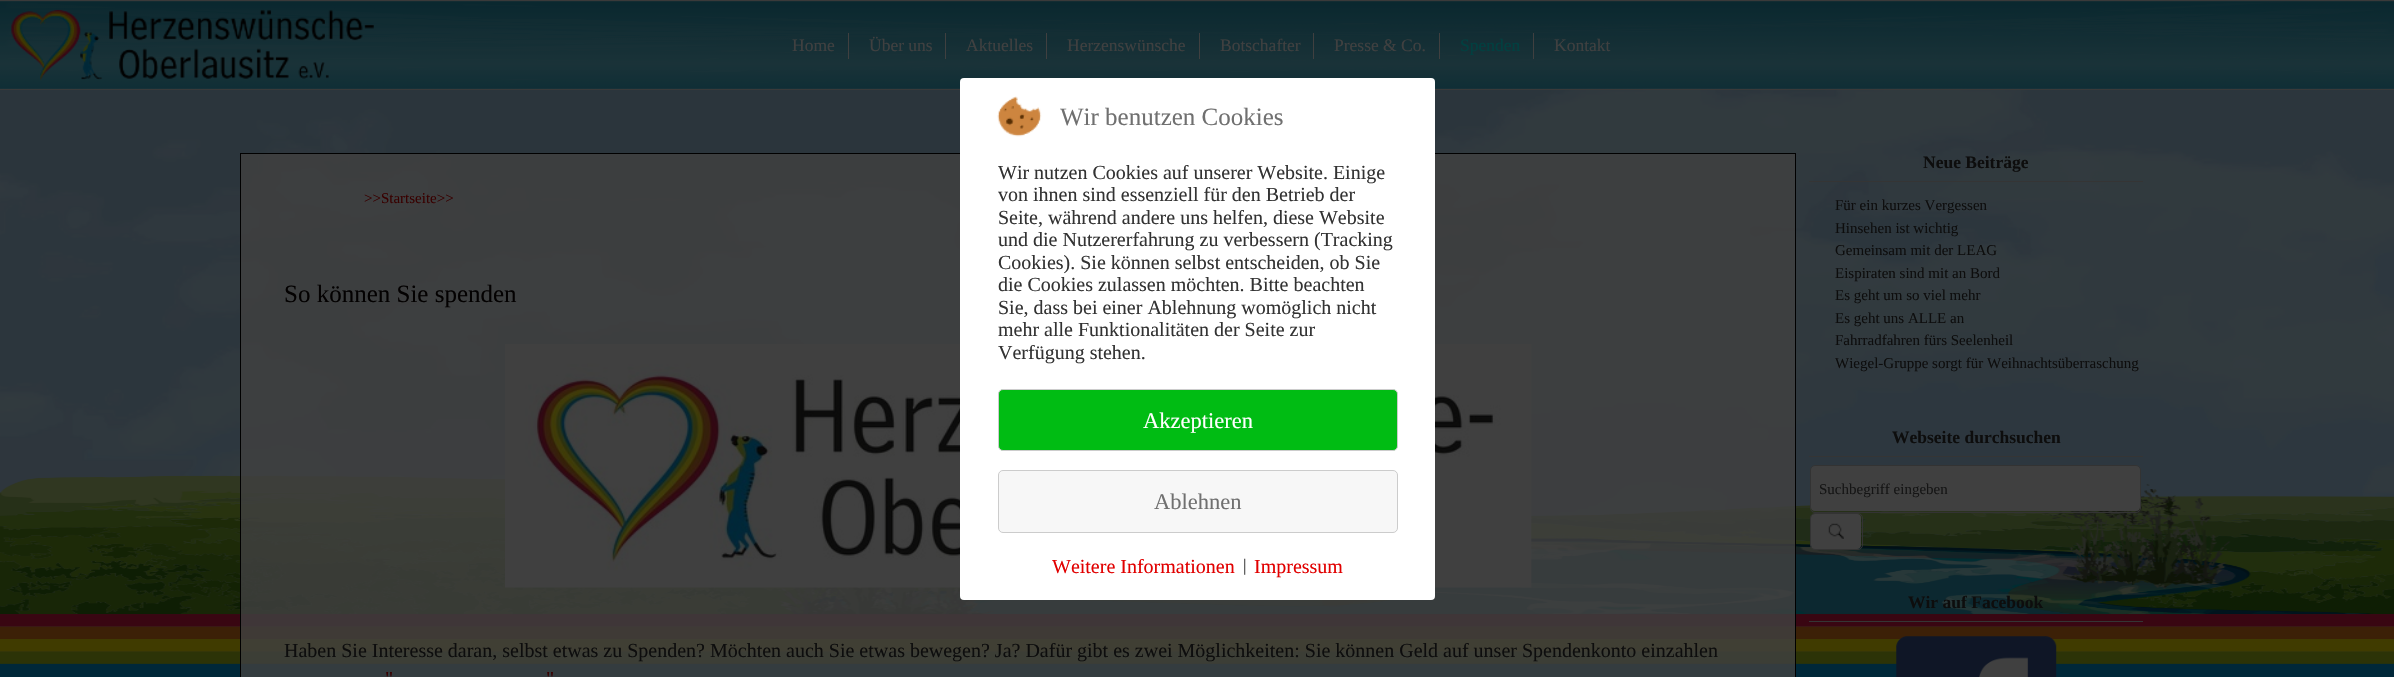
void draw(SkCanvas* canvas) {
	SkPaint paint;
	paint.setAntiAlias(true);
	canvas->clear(0xffffffff);
	canvas->drawImageRect(SkImages::DeferredFromEncodedData(SkData::MakeFromFileName("img1.png")), SkRect::MakeXYWH(0, 1, 2394, 676), SkSamplingOptions());
	canvas->drawImageRect(SkImages::DeferredFromEncodedData(SkData::MakeFromFileName("img2.png")), SkRect::MakeXYWH(0, 1, 2394, 88), SkSamplingOptions());
	paint.setColor(0xff3a3a3a);
	canvas->drawRect(SkRect::MakeXYWH(0, 0, 2394, 1), paint);
	canvas->drawRect(SkRect::MakeXYWH(0, 89, 2394, 1), paint);
	canvas->drawImageRect(SkImages::DeferredFromEncodedData(SkData::MakeFromFileName("img3.png")), SkRect::MakeXYWH(10, 9, 364, 72), SkSamplingOptions());
	SkFont f1(fontMgr->matchFamilyStyle("Liberation Serif", SkFontStyle::Normal()), 17.5);
	f1.setSubpixel(true);
	paint.setColor(0xff404040);
	canvas->drawString("Home", 792, 51, f1, paint);
	canvas->drawRect(SkRect::MakeXYWH(848, 33, 1, 26), paint);
	canvas->drawString("Über uns", 869, 51, f1, paint);
	canvas->drawRect(SkRect::MakeXYWH(945, 33, 1, 26), paint);
	canvas->drawString("Aktuelles", 966, 51, f1, paint);
	canvas->drawRect(SkRect::MakeXYWH(1046, 33, 1, 26), paint);
	canvas->drawString("Herzenswünsche", 1067, 51, f1, paint);
	canvas->drawRect(SkRect::MakeXYWH(1199, 33, 1, 26), paint);
	canvas->drawString("Botschafter", 1220, 51, f1, paint);
	canvas->drawRect(SkRect::MakeXYWH(1313, 33, 1, 26), paint);
	canvas->drawString("Presse & Co.", 1334, 51, f1, paint);
	canvas->drawRect(SkRect::MakeXYWH(1439, 33, 1, 26), paint);
	paint.setColor(0xff004040);
	canvas->drawString("Spenden", 1460, 51, f1, paint);
	paint.setColor(0xff404040);
	canvas->drawRect(SkRect::MakeXYWH(1533, 33, 1, 26), paint);
	canvas->drawString("Kontakt", 1554, 51, f1, paint);
	paint.setColor(0xd1403f3f);
	canvas->drawRect(SkRect::MakeXYWH(240.5, 153.5, 1555, 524), paint);
	paint.setStroke(true);
	paint.setStrokeWidth(1);
	paint.setColor(0xff000000);
	canvas->drawRect(SkRect::MakeXYWH(240.5, 153.5, 1555, 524), paint);
	canvas->drawImageRect(SkImages::DeferredFromEncodedData(SkData::MakeFromFileName("img5.png")), SkRect::MakeXYWH(505, 344, 1027, 244), SkSamplingOptions());
	paint.setStroke(false);
	paint.setColor(0xffffffff);
	canvas->drawRoundRect(SkRect::MakeXYWH(960, 78, 475, 522), 4, 4, paint);
	canvas->drawImageRect(SkImages::DeferredFromEncodedData(SkData::MakeFromFileName("img4.png")), SkRect::MakeXYWH(997, 96, 45, 41), SkSamplingOptions());
	SkFont f2(fontMgr->matchFamilyStyle("Liberation Serif", SkFontStyle::Normal()), 25);
	f2.setSubpixel(true);
	paint.setColor(0xff707070);
	canvas->drawString("Wir benutzen Cookies", 1060, 125, f2, paint);
	SkFont f3(fontMgr->matchFamilyStyle("Liberation Serif", SkFontStyle::Normal()), 20);
	f3.setSubpixel(true);
	paint.setColor(0xff333333);
	canvas->drawString("Wir nutzen Cookies auf unserer Website. Einige", 998, 179, f3, paint);
	canvas->drawString("von ihnen sind essenziell für den Betrieb der", 998, 201, f3, paint);
	canvas->drawString("Seite, während andere uns helfen, diese Website", 998, 224, f3, paint);
	canvas->drawString("und die Nutzererfahrung zu verbessern (Tracking", 998, 246, f3, paint);
	canvas->drawString("Cookies). Sie können selbst entscheiden, ob Sie", 998, 269, f3, paint);
	canvas->drawString("die Cookies zulassen möchten. Bitte beachten", 998, 291, f3, paint);
	canvas->drawString("Sie, dass bei einer Ablehnung womöglich nicht", 998, 314, f3, paint);
	canvas->drawString("mehr alle Funktionalitäten der Seite zur", 998, 336, f3, paint);
	canvas->drawString("Verfügung stehen.", 998, 359, f3, paint);
	paint.setColor(0xff00bc13);
	canvas->drawRoundRect(SkRect::MakeXYWH(998.5, 389.5, 399, 61), 4.5, 4.5, paint);
	paint.setStroke(true);
	paint.setColor(0xffcccccc);
	canvas->drawRoundRect(SkRect::MakeXYWH(998.5, 389.5, 399, 61), 4.5, 4.5, paint);
	SkFont f4(fontMgr->matchFamilyStyle("Liberation Serif", SkFontStyle::Normal()), 22.5);
	f4.setSubpixel(true);
	paint.setStroke(false);
	paint.setColor(0xffffffff);
	canvas->drawString("Akzeptieren", 1143, 428, f4, paint);
	paint.setColor(0xfff7f7f7);
	canvas->drawRoundRect(SkRect::MakeXYWH(998.5, 470.5, 399, 62), 4.5, 4.5, paint);
	paint.setStroke(true);
	paint.setColor(0xffcccccc);
	canvas->drawRoundRect(SkRect::MakeXYWH(998.5, 470.5, 399, 62), 4.5, 4.5, paint);
	paint.setStroke(false);
	paint.setColor(0xff707070);
	canvas->drawString("Ablehnen", 1154, 509, f4, paint);
	paint.setColor(0xffe10000);
	canvas->drawString("Weitere Informationen", 1052, 573, f3, paint);
	paint.setColor(0xff333333);
	canvas->drawString("|", 1243, 571, f1, paint);
	paint.setColor(0xffe10000);
	canvas->drawString("Impressum", 1254, 573, f3, paint);
	SkFont f5(fontMgr->matchFamilyStyle("Liberation Serif", SkFontStyle::Normal()), 15);
	f5.setSubpixel(true);
	paint.setColor(0xff380000);
	canvas->drawString(">>Startseite>>", 364, 203, f5, paint);
	paint.setColor(0xff030101);
	canvas->drawString("So können Sie spenden", 284, 302, f2, paint);
	paint.setColor(0xff0d0d0d);
	canvas->drawString("Haben Sie Interesse daran, selbst etwas zu Spenden? Möchten auch Sie etwas bewegen? Ja? Dafür gibt es zwei Möglichkeiten: Sie können Geld auf unser Spendenkonto einzahlen", 284, 657, f3, paint);
	paint.setColor(0xff380000);
	canvas->drawString("\"", 385, 685, f3, paint);
	canvas->drawString("\"", 546, 685, f3, paint);
	paint.setColor(0xff353535);
	canvas->drawRect(SkRect::MakeXYWH(1809, 181, 334, 1), paint);
	SkFont f6(fontMgr->matchFamilyStyle("Liberation Serif", SkFontStyle::Bold()), 17.5);
	f6.setSubpixel(true);
	paint.setColor(0xff0d0d0d);
	canvas->drawString("Neue Beiträge", 1923, 168, f6, paint);
	canvas->drawString("Für ein kurzes Vergessen", 1835, 210, f5, paint);
	canvas->drawString("Hinsehen ist wichtig", 1835, 233, f5, paint);
	canvas->drawString("Gemeinsam mit der LEAG", 1835, 255, f5, paint);
	canvas->drawString("Eispiraten sind mit an Bord", 1835, 278, f5, paint);
	canvas->drawString("Es geht um so viel mehr", 1835, 300, f5, paint);
	canvas->drawString("Es geht uns ALLE an", 1835, 323, f5, paint);
	canvas->drawString("Fahrradfahren fürs Seelenheil", 1835, 345, f5, paint);
	canvas->drawString("Wiegel-Gruppe sorgt für Weihnachtsüberraschung", 1835, 368, f5, paint);
	paint.setColor(0xff353535);
	canvas->drawRect(SkRect::MakeXYWH(1809, 456, 334, 1), paint);
	paint.setColor(0xff0d0d0d);
	canvas->drawString("Webseite durchsuchen", 1892, 443, f6, paint);
	paint.setColor(0xff404040);
	canvas->drawRoundRect(SkRect::MakeXYWH(1811, 466, 329, 45), 4, 4, paint);
	paint.setStroke(true);
	paint.setColor(0xff333333);
	canvas->drawRoundRect(SkRect::MakeXYWH(1810.5, 465.5, 330, 47), 4.5, 4.5, paint);
	paint.setStroke(false);
	paint.setColor(0xff151515);
	canvas->drawString("Suchbegriff eingeben", 1819, 494, f5, paint);
	paint.setColor(0xff404040);
	canvas->drawRoundRect(SkRect::MakeXYWH(1811, 514, 50, 35), 4, 4, paint);
	paint.setStroke(true);
	paint.setColor(0xff333333);
	canvas->drawRoundRect(SkRect::MakeXYWH(1810.5, 513.5, 52, 36), 4.5, 4.5, paint);
	canvas->drawImageRect(SkImages::DeferredFromEncodedData(SkData::MakeFromFileName("img6.png")), SkRect::MakeXYWH(1828, 523, 16, 16), SkSamplingOptions());
	paint.setStroke(false);
	paint.setColor(0xff353535);
	canvas->drawRect(SkRect::MakeXYWH(1809, 621, 334, 1), paint);
	paint.setColor(0xff0d0d0d);
	canvas->drawString("Wir auf Facebook", 1908, 608, f6, paint);
	canvas->drawImageRect(SkImages::DeferredFromEncodedData(SkData::MakeFromFileName("img7.png")), SkRect::MakeXYWH(1896, 636, 161, 41), SkSamplingOptions());
}
